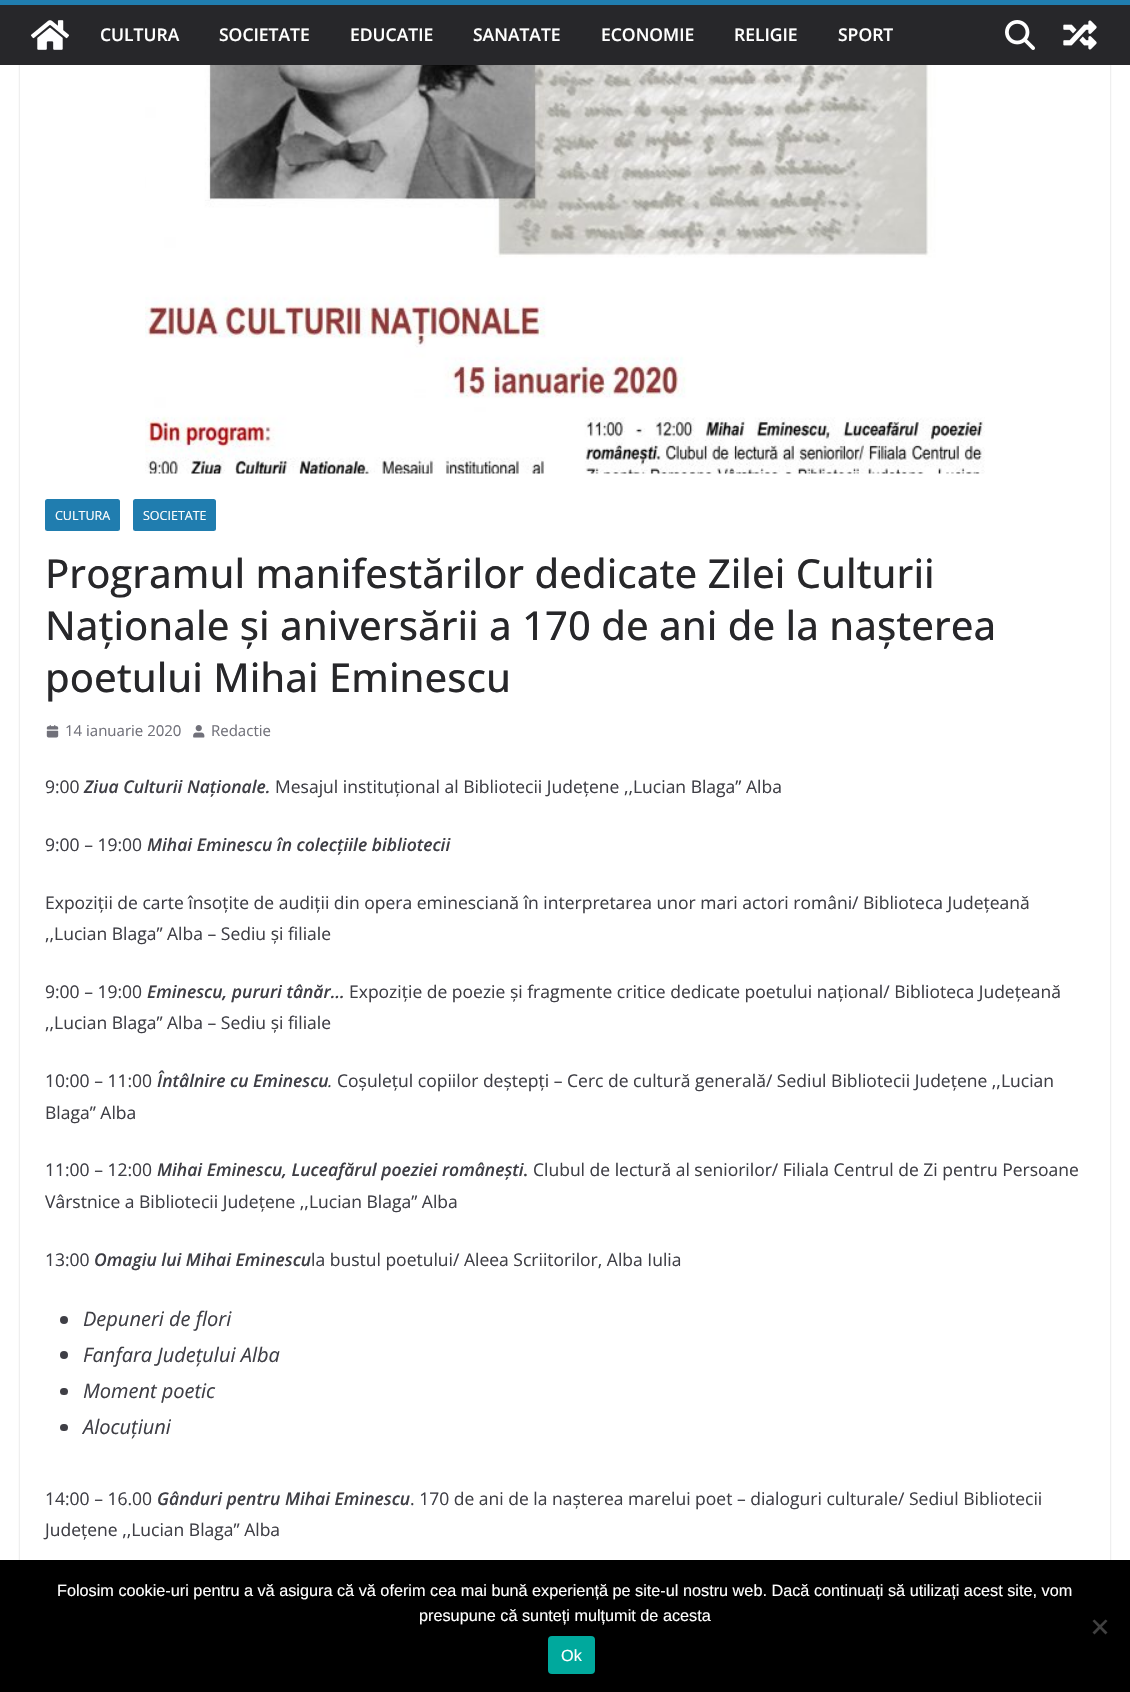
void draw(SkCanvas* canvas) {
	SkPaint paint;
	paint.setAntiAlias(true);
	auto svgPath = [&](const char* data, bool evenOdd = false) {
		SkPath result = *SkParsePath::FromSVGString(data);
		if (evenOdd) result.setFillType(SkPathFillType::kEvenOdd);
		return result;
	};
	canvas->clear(0xffffffff);
	canvas->save();
	canvas->clipPath(svgPath("M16 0H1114V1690H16ZM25-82H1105C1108-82 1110-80 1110-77V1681C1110 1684 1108 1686 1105 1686H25C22 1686 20 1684 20 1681V-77C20-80 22-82 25-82Z", true), true);
	paint.setColor(0x3d000000);
	paint.setMaskFilter(SkMaskFilter::MakeBlur(kNormal_SkBlurStyle, 1));
	canvas->drawRoundRect(SkRect::MakeXYWH(20, -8, 1090, 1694), 5, 5, paint);
	paint.setMaskFilter(nullptr);
	canvas->restore();
	paint.setColor(0xff27272a);
	canvas->drawRect(SkRect::MakeXYWH(0, 5, 1130, 60), paint);
	paint.setColor(0xff207daf);
	canvas->drawRect(SkRect::MakeXYWH(0, 0, 1130, 5), paint);
	canvas->drawImageRect(SkImages::DeferredFromEncodedData(SkData::MakeFromFileName("img1.png")), SkRect::MakeXYWH(31, 20, 38, 30), SkSamplingOptions());
	SkFont f1(fontMgr->matchFamilyStyle("Open Sans", SkFontStyle(600, SkFontStyle::kNormal_Width, SkFontStyle::kUpright_Slant)), 17.5);
	f1.setSubpixel(true);
	paint.setColor(0xffffffff);
	canvas->drawString("CULTURA", 100, 41, f1, paint);
	canvas->drawString("SOCIETATE", 219, 41, f1, paint);
	canvas->drawString("EDUCATIE", 350, 41, f1, paint);
	canvas->drawString("SANATATE", 473, 41, f1, paint);
	canvas->drawString("ECONOMIE", 601, 41, f1, paint);
	canvas->drawString("RELIGIE", 734, 41, f1, paint);
	canvas->drawString("SPORT", 838, 41, f1, paint);
	canvas->drawImageRect(SkImages::DeferredFromEncodedData(SkData::MakeFromFileName("img2.png")), SkRect::MakeXYWH(1005, 20, 30, 30), SkSamplingOptions());
	canvas->drawImageRect(SkImages::DeferredFromEncodedData(SkData::MakeFromFileName("img3.png")), SkRect::MakeXYWH(1063, 20, 34, 30), SkSamplingOptions());
	canvas->drawImageRect(SkImages::DeferredFromEncodedData(SkData::MakeFromFileName("img4.png")), SkRect::MakeXYWH(145, 65, 840, 409), SkSamplingOptions());
	paint.setColor(0xff207daf);
	canvas->drawRoundRect(SkRect::MakeXYWH(45, 499, 75, 32), 2.5, 2.5, paint);
	SkFont f2(fontMgr->matchFamilyStyle("Open Sans", SkFontStyle::Normal()), 12.5);
	f2.setSubpixel(true);
	paint.setColor(0xffffffff);
	canvas->drawString("CULTURA", 55, 520, f2, paint);
	paint.setColor(0xff207daf);
	canvas->drawRoundRect(SkRect::MakeXYWH(133, 499, 83, 32), 2.5, 2.5, paint);
	paint.setColor(0xffffffff);
	canvas->drawString("SOCIETATE", 143, 520, f2, paint);
	SkFont f3(fontMgr->matchFamilyStyle("Open Sans", SkFontStyle(500, SkFontStyle::kNormal_Width, SkFontStyle::kUpright_Slant)), 40);
	f3.setSubpixel(true);
	paint.setColor(0xff27272a);
	canvas->drawString("Programul manifestărilor dedicate Zilei Culturii", 45, 588, f3, paint);
	canvas->drawString("Naționale și aniversării a 170 de ani de la nașterea", 45, 640, f3, paint);
	canvas->drawString("poetului Mihai Eminescu", 45, 692, f3, paint);
	canvas->drawImageRect(SkImages::DeferredFromEncodedData(SkData::MakeFromFileName("img5.png")), SkRect::MakeXYWH(46, 725, 13, 13), SkSamplingOptions());
	SkFont f4(fontMgr->matchFamilyStyle("Open Sans", SkFontStyle::Normal()), 15);
	f4.setSubpixel(true);
	paint.setColor(0xff71717a);
	canvas->drawString("14 ianuarie 2020", 65, 736, f4, paint);
	canvas->drawImageRect(SkImages::DeferredFromEncodedData(SkData::MakeFromFileName("img6.png")), SkRect::MakeXYWH(193, 725, 12, 13), SkSamplingOptions());
	canvas->drawString("Redactie", 211, 736, f4, paint);
	SkFont f5(fontMgr->matchFamilyStyle("Open Sans", SkFontStyle::Normal()), 17.5);
	f5.setSubpixel(true);
	paint.setColor(0xff3f3f46);
	canvas->drawString("9:00", 45, 793, f5, paint);
	SkFont f6(fontMgr->matchFamilyStyle("Open Sans", SkFontStyle(600, SkFontStyle::kNormal_Width, SkFontStyle::kItalic_Slant)), 17.5);
	f6.setSubpixel(true);
	canvas->drawString("Ziua Culturii Naționale.", 84, 793, f6, paint);
	canvas->drawString("Mesajul instituțional al Bibliotecii Județene ,,Lucian Blaga” Alba", 275, 793, f5, paint);
	canvas->drawString("9:00 – 19:00", 45, 851, f5, paint);
	canvas->drawString("Mihai Eminescu în colecțiile bibliotecii", 147, 851, f6, paint);
	canvas->drawString("Expoziții de carte însoțite de audiții din opera eminesciană în interpretarea unor mari actori români/ Biblioteca Județeană", 45, 909, f5, paint);
	canvas->drawString(",,Lucian Blaga” Alba – Sediu și filiale", 45, 940, f5, paint);
	canvas->drawString("9:00 – 19:00", 45, 998, f5, paint);
	canvas->drawString("Eminescu, pururi tânăr…", 147, 998, f6, paint);
	canvas->drawString("Expoziție de poezie și fragmente critice dedicate poetului național/ Biblioteca Județeană", 349, 998, f5, paint);
	canvas->drawString(",,Lucian Blaga” Alba – Sediu și filiale", 45, 1029, f5, paint);
	canvas->drawString("10:00 – 11:00", 45, 1087, f5, paint);
	canvas->drawString("Întâlnire cu Eminescu", 157, 1087, f6, paint);
	SkFont f7(fontMgr->matchFamilyStyle("Open Sans", SkFontStyle::Italic()), 17.5);
	f7.setSubpixel(true);
	canvas->drawString(".", 328, 1087, f7, paint);
	canvas->drawString("Coșulețul copiilor deștepți – Cerc de cultură generală/ Sediul Bibliotecii Județene ,,Lucian", 337, 1087, f5, paint);
	canvas->drawString("Blaga” Alba", 45, 1119, f5, paint);
	canvas->drawString("11:00 – 12:00", 45, 1176, f5, paint);
	canvas->drawString("Mihai Eminescu, Luceafărul poeziei românești", 157, 1176, f6, paint);
	canvas->drawString(".", 523, 1176, f1, paint);
	canvas->drawString("Clubul de lectură al seniorilor/ Filiala Centrul de Zi pentru Persoane", 533, 1176, f5, paint);
	canvas->drawString("Vârstnice a Bibliotecii Județene ,,Lucian Blaga” Alba", 45, 1208, f5, paint);
	canvas->drawString("13:00", 45, 1266, f5, paint);
	canvas->drawString("Omagiu lui Mihai Eminescu", 94, 1266, f6, paint);
	canvas->drawString("la bustul poetului/ Aleea Scriitorilor, Alba Iulia", 311, 1266, f5, paint);
	canvas->drawCircle(64, 1320, 4, paint);
	SkFont f8(fontMgr->matchFamilyStyle("Open Sans", SkFontStyle::Italic()), 20);
	f8.setSubpixel(true);
	canvas->drawString("Depuneri de flori", 83, 1326, f8, paint);
	canvas->drawCircle(64, 1355, 4, paint);
	canvas->drawString("Fanfara Județului Alba", 83, 1362, f8, paint);
	canvas->drawRoundRect(SkRect::MakeXYWH(60, 1388, 8, 7), 3.5, 3.5, paint);
	canvas->drawString("Moment poetic", 83, 1398, f8, paint);
	canvas->drawRoundRect(SkRect::MakeXYWH(60, 1424, 8, 7), 3.5, 3.5, paint);
	canvas->drawString("Alocuțiuni", 83, 1434, f8, paint);
	canvas->drawString("14:00 – 16.00", 45, 1505, f5, paint);
	canvas->drawString("Gânduri pentru Mihai Eminescu", 157, 1505, f6, paint);
	canvas->drawString(". 170 de ani de la nașterea marelui poet – dialoguri culturale/ Sediul Bibliotecii", 410, 1505, f5, paint);
	canvas->drawString("Județene ,,Lucian Blaga” Alba", 45, 1536, f5, paint);
	paint.setColor(0xff000000);
	canvas->drawRect(SkRect::MakeXYWH(0, 1560, 1130, 132), paint);
	SkFont f9(fontMgr->matchFamilyStyle("Liberation Sans", SkFontStyle::Normal()), 16.25);
	f9.setSubpixel(true);
	paint.setColor(0xffffffff);
	canvas->drawString("Folosim cookie-uri pentru a vă asigura că vă oferim cea mai bună experiență pe site-ul nostru web. Dacă continuați să utilizați acest site, vom", 57, 1596, f9, paint);
	canvas->drawString("presupune că sunteți mulțumit de acesta", 419, 1621, f9, paint);
	paint.setColor(0xff404040);
	canvas->drawPath(svgPath("M1105.5 1619.5L1107.5 1621L1094.5 1634.5L1092.5 1632.5Z"), paint);
	canvas->drawPath(svgPath("M1092.5 1621L1094.5 1619.5L1107.5 1632.5L1105.5 1634.5Z"), paint);
	paint.setColor(0xff00a99d);
	canvas->drawRoundRect(SkRect::MakeXYWH(548, 1636, 47, 38), 4, 4, paint);
	paint.setColor(0xffffffff);
	canvas->drawString("Ok", 561, 1661, f9, paint);
}
